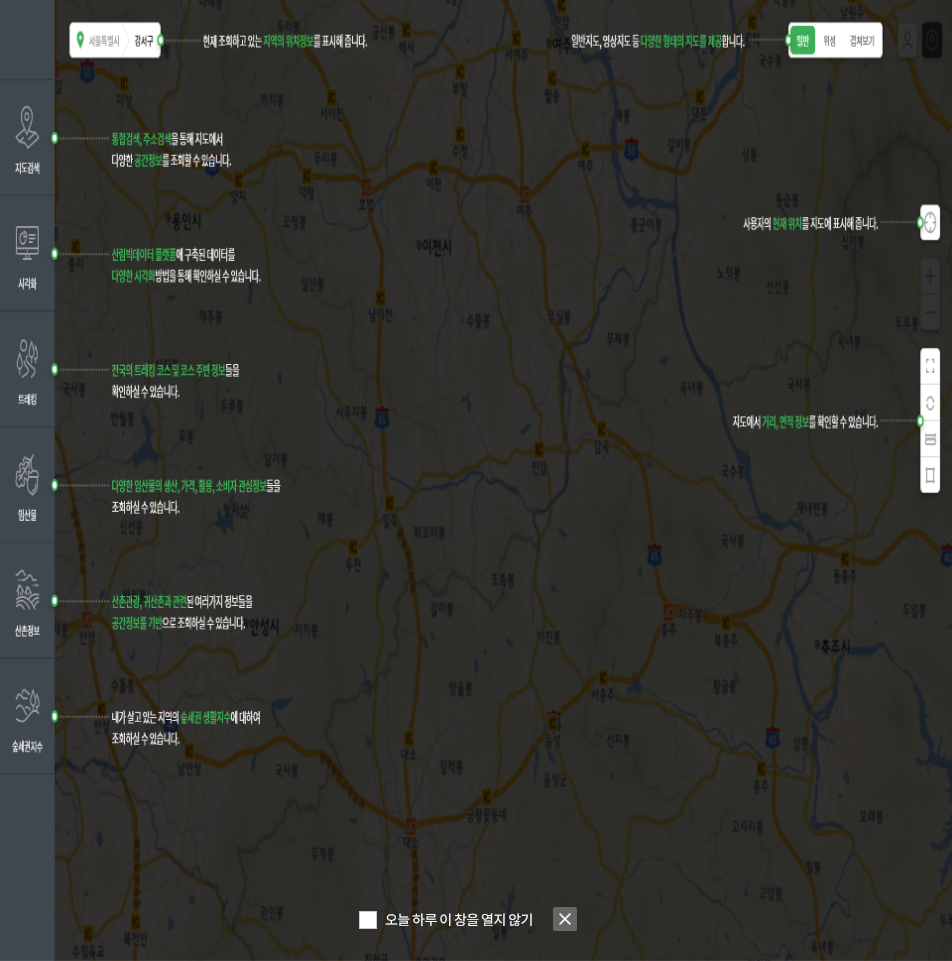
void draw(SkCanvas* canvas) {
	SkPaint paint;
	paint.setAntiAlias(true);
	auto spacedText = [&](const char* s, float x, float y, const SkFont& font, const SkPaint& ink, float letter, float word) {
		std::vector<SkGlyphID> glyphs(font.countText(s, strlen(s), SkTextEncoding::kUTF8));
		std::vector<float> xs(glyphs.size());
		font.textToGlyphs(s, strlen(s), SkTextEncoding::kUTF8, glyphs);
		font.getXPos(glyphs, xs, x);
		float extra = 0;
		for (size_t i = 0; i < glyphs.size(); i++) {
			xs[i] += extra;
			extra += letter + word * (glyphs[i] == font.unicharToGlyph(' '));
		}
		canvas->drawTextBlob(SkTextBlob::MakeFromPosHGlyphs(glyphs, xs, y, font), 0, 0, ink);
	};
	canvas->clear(0xffffffff);
	canvas->drawImageRect(SkImages::DeferredFromEncodedData(SkData::MakeFromFileName("img1.png")), SkRect::MakeXYWH(0, 0, 952, 961), SkSamplingOptions());
	paint.setColor(0xffffffff);
	canvas->drawRect(SkRect::MakeXYWH(359.5, 911.5, 17, 17), paint);
	paint.setStroke(true);
	paint.setStrokeWidth(1);
	paint.setColor(0xffc9c9c9);
	canvas->drawRect(SkRect::MakeXYWH(359.5, 911.5, 17, 17), paint);
	SkFont f1(fontMgr->matchFamilyStyle("Noto Sans KR", SkFontStyle::Normal()), 14);
	f1.setSubpixel(true);
	paint.setStroke(false);
	paint.setColor(0xffffffff);
	spacedText("오늘 하루 이 창을 열지 않기", 385, 925, f1, paint, -0.6, 0);
	paint.setColor(0xff666666);
	canvas->drawRoundRect(SkRect::MakeXYWH(553, 907, 24, 24), 2, 2, paint);
	canvas->drawImageRect(SkImages::DeferredFromEncodedData(SkData::MakeFromFileName("img2.png")), SkRect::MakeXYWH(559, 913, 12, 12), SkSamplingOptions());
}
